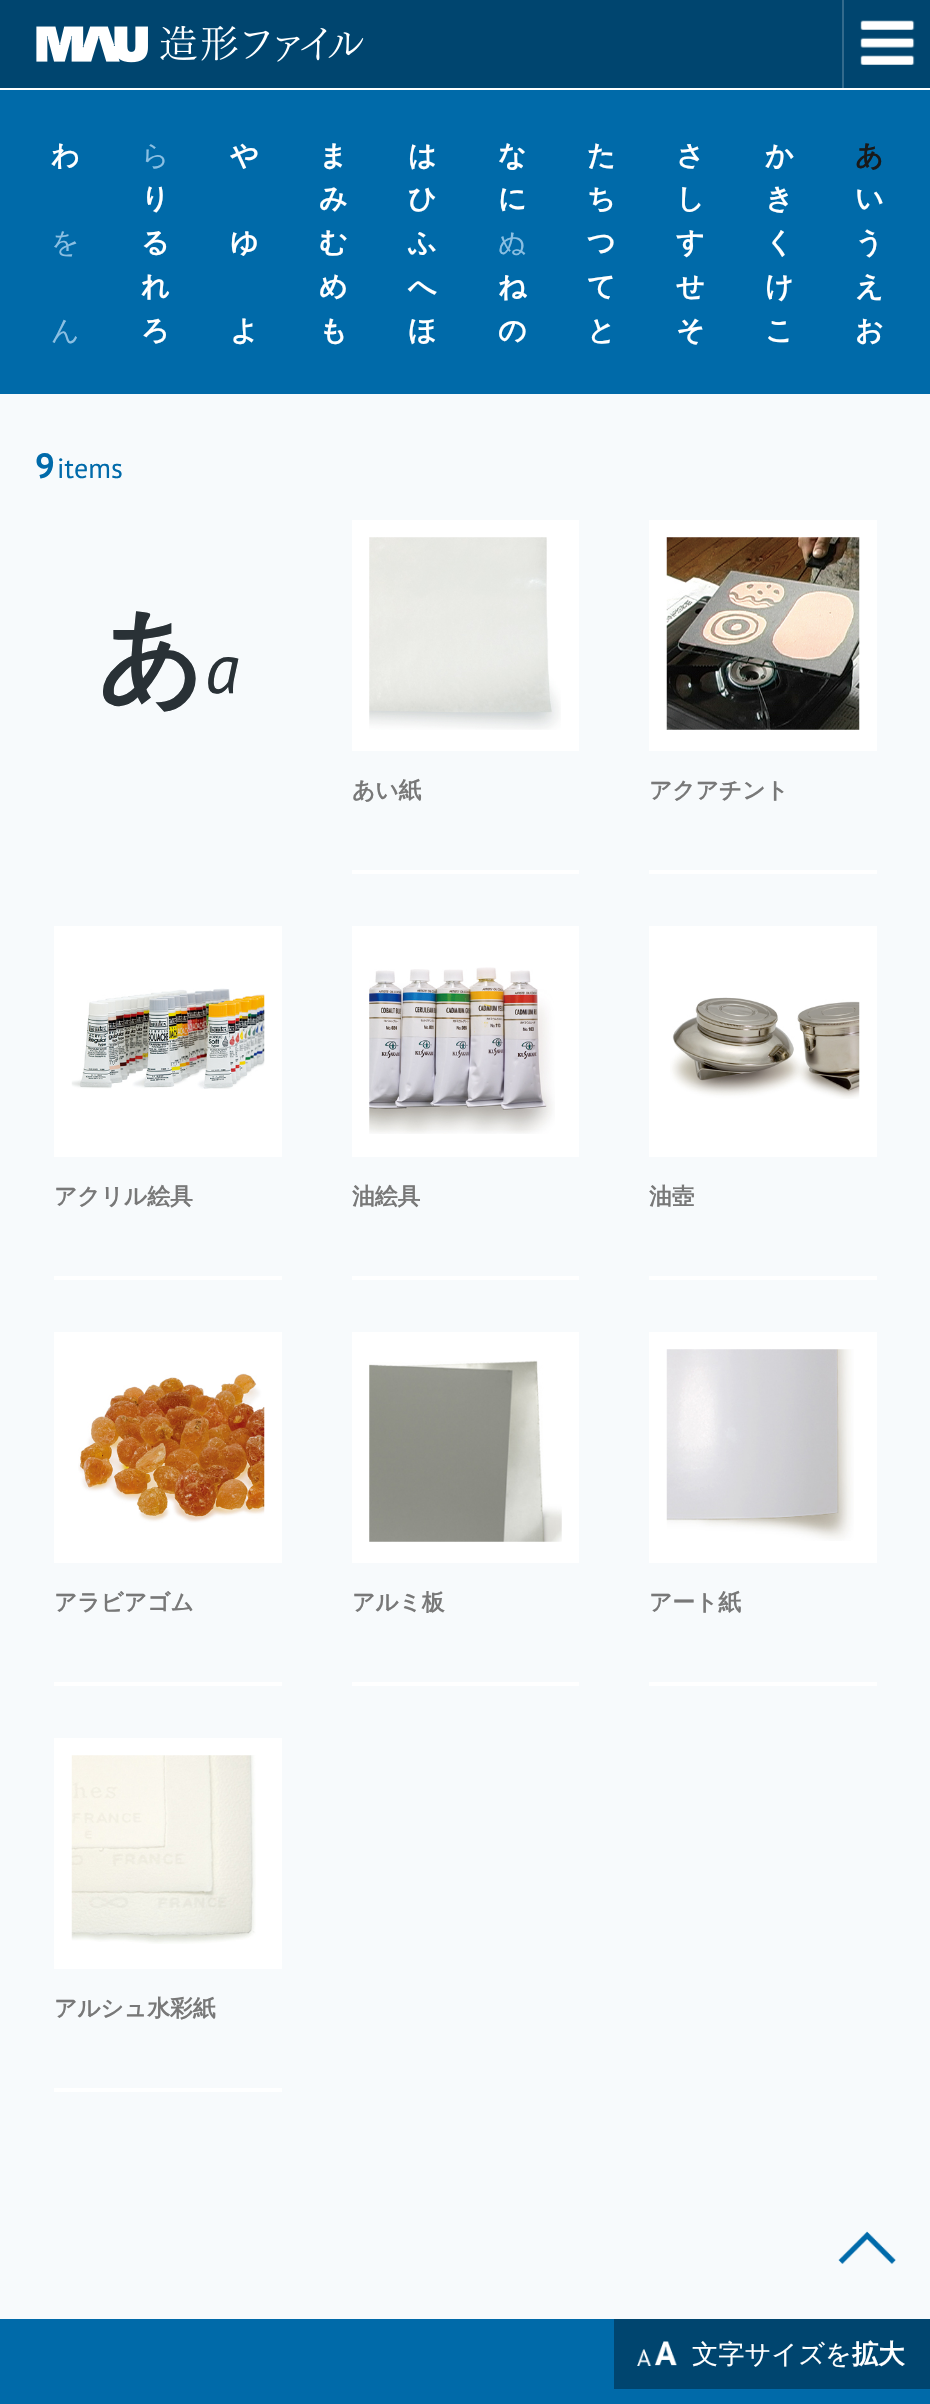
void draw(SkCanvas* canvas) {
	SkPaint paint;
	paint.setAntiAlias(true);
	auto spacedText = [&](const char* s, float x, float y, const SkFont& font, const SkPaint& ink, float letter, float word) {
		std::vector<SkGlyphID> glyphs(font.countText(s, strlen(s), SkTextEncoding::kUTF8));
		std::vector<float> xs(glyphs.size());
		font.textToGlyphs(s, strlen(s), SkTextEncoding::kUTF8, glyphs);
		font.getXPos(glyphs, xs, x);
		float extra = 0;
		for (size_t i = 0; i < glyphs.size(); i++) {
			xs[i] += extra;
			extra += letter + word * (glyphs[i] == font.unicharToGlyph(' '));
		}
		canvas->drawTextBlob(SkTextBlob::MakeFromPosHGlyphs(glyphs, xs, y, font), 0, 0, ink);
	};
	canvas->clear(0xff006aa9);
	paint.setColor(0xffffffff);
	canvas->drawRect(SkRect::MakeXYWH(0, 88, 930, 2), paint);
	paint.setColor(0xff00456f);
	canvas->drawRect(SkRect::MakeXYWH(0, 0, 930, 88), paint);
	canvas->drawImageRect(SkImages::DeferredFromEncodedData(SkData::MakeFromFileName("img1.png")), SkRect::MakeXYWH(36, 25, 328, 38), SkSamplingOptions());
	paint.setColor(0xff336a8c);
	canvas->drawRect(SkRect::MakeXYWH(842, 0, 2, 88), paint);
	canvas->drawImageRect(SkImages::DeferredFromEncodedData(SkData::MakeFromFileName("img2.png")), SkRect::MakeXYWH(860, 20, 55, 45), SkSamplingOptions());
	paint.setColor(0xfff7fafc);
	canvas->drawRect(SkRect::MakeXYWH(0, 394, 930, 1925), paint);
	SkFont f1(fontMgr->matchFamilyStyle("WenQuanYi Zen Hei", SkFontStyle::Bold()), 28);
	f1.setSubpixel(true);
	paint.setColor(0xffffffff);
	canvas->drawString("わ", 51, 165, f1, paint);
	SkFont f2(fontMgr->matchFamilyStyle("WenQuanYi Zen Hei", SkFontStyle(500, SkFontStyle::kNormal_Width, SkFontStyle::kUpright_Slant)), 28);
	f2.setSubpixel(true);
	paint.setColor(0xff8bbfe2);
	canvas->drawString("を", 51, 252, f2, paint);
	canvas->drawString("ん", 51, 340, f2, paint);
	canvas->drawString("ら", 141, 165, f2, paint);
	paint.setColor(0xffffffff);
	canvas->drawString("り", 141, 208, f1, paint);
	canvas->drawString("る", 141, 252, f1, paint);
	canvas->drawString("れ", 141, 296, f1, paint);
	canvas->drawString("ろ", 141, 340, f1, paint);
	canvas->drawString("や", 230, 165, f1, paint);
	canvas->drawString("ゆ", 230, 252, f1, paint);
	canvas->drawString("よ", 230, 340, f1, paint);
	canvas->drawString("ま", 319, 165, f1, paint);
	canvas->drawString("み", 319, 208, f1, paint);
	canvas->drawString("む", 319, 252, f1, paint);
	canvas->drawString("め", 319, 296, f1, paint);
	canvas->drawString("も", 319, 340, f1, paint);
	canvas->drawString("は", 408, 165, f1, paint);
	canvas->drawString("ひ", 408, 208, f1, paint);
	canvas->drawString("ふ", 408, 252, f1, paint);
	canvas->drawString("へ", 408, 296, f1, paint);
	canvas->drawString("ほ", 408, 340, f1, paint);
	canvas->drawString("な", 498, 165, f1, paint);
	canvas->drawString("に", 498, 208, f1, paint);
	paint.setColor(0xff8bbfe2);
	canvas->drawString("ぬ", 498, 252, f2, paint);
	paint.setColor(0xffffffff);
	canvas->drawString("ね", 498, 296, f1, paint);
	canvas->drawString("の", 498, 340, f1, paint);
	canvas->drawString("た", 587, 165, f1, paint);
	canvas->drawString("ち", 587, 208, f1, paint);
	canvas->drawString("つ", 587, 252, f1, paint);
	canvas->drawString("て", 587, 296, f1, paint);
	canvas->drawString("と", 587, 340, f1, paint);
	canvas->drawString("さ", 676, 165, f1, paint);
	canvas->drawString("し", 676, 208, f1, paint);
	canvas->drawString("す", 676, 252, f1, paint);
	canvas->drawString("せ", 676, 296, f1, paint);
	canvas->drawString("そ", 676, 340, f1, paint);
	canvas->drawString("か", 765, 165, f1, paint);
	canvas->drawString("き", 765, 208, f1, paint);
	canvas->drawString("く", 765, 252, f1, paint);
	canvas->drawString("け", 765, 296, f1, paint);
	canvas->drawString("こ", 765, 340, f1, paint);
	paint.setColor(0xff191919);
	canvas->drawString("あ", 855, 165, f1, paint);
	paint.setColor(0xffffffff);
	canvas->drawString("い", 855, 208, f1, paint);
	canvas->drawString("う", 855, 252, f1, paint);
	canvas->drawString("え", 855, 296, f1, paint);
	canvas->drawString("お", 855, 340, f1, paint);
	SkFont f3(fontMgr->matchFamilyStyle("PT Sans", SkFontStyle::Bold()), 35);
	f3.setSubpixel(true);
	paint.setColor(0xff006aaa);
	spacedText("9", 35, 478, f3, paint, 2, 0);
	SkFont f4(fontMgr->matchFamilyStyle("PT Sans", SkFontStyle::Normal()), 28);
	f4.setSubpixel(true);
	canvas->drawString("items", 57, 478, f4, paint);
	SkFont f5(fontMgr->matchFamilyStyle("WenQuanYi Zen Hei", SkFontStyle::Bold()), 105);
	f5.setSubpixel(true);
	paint.setColor(0xff293136);
	canvas->drawString("あ", 97, 693, f5, paint);
	SkFont f6(fontMgr->matchFamilyStyle("PT Sans", SkFontStyle::Italic()), 70);
	f6.setSubpixel(true);
	canvas->drawString("a", 205, 693, f6, paint);
	paint.setColor(0xffffffff);
	canvas->drawRect(SkRect::MakeXYWH(352, 870, 227, 4), paint);
	canvas->drawRect(SkRect::MakeXYWH(352, 520, 227, 231), paint);
	canvas->drawImageRect(SkImages::DeferredFromEncodedData(SkData::MakeFromFileName("img3.png")), SkRect::MakeXYWH(369, 537, 192, 193), SkSamplingOptions());
	SkFont f7(fontMgr->matchFamilyStyle("WenQuanYi Zen Hei", SkFontStyle::Bold()), 22.75);
	f7.setSubpixel(true);
	paint.setColor(0xff787878);
	canvas->drawString("あい紙", 352, 798, f7, paint);
	paint.setColor(0xffffffff);
	canvas->drawRect(SkRect::MakeXYWH(649, 870, 228, 4), paint);
	canvas->drawRect(SkRect::MakeXYWH(649, 520, 228, 231), paint);
	canvas->drawImageRect(SkImages::DeferredFromEncodedData(SkData::MakeFromFileName("img4.png")), SkRect::MakeXYWH(666, 537, 194, 193), SkSamplingOptions());
	paint.setColor(0xff787878);
	canvas->drawString("アクアチント", 649, 798, f7, paint);
	paint.setColor(0xffffffff);
	canvas->drawRect(SkRect::MakeXYWH(54, 1276, 228, 4), paint);
	canvas->drawRect(SkRect::MakeXYWH(54, 926, 228, 231), paint);
	canvas->drawImageRect(SkImages::DeferredFromEncodedData(SkData::MakeFromFileName("img5.png")), SkRect::MakeXYWH(71, 988, 194, 101), SkSamplingOptions());
	paint.setColor(0xff787878);
	canvas->drawString("アクリル絵具", 54, 1204, f7, paint);
	paint.setColor(0xffffffff);
	canvas->drawRect(SkRect::MakeXYWH(352, 1276, 227, 4), paint);
	canvas->drawRect(SkRect::MakeXYWH(352, 926, 227, 231), paint);
	canvas->drawImageRect(SkImages::DeferredFromEncodedData(SkData::MakeFromFileName("img6.png")), SkRect::MakeXYWH(369, 967, 186, 167), SkSamplingOptions());
	paint.setColor(0xff787878);
	canvas->drawString("油絵具", 352, 1204, f7, paint);
	paint.setColor(0xffffffff);
	canvas->drawRect(SkRect::MakeXYWH(649, 1276, 228, 4), paint);
	canvas->drawRect(SkRect::MakeXYWH(649, 926, 228, 231), paint);
	canvas->drawImageRect(SkImages::DeferredFromEncodedData(SkData::MakeFromFileName("img7.png")), SkRect::MakeXYWH(670, 997, 190, 102), SkSamplingOptions());
	paint.setColor(0xff787878);
	canvas->drawString("油壺", 649, 1204, f7, paint);
	paint.setColor(0xffffffff);
	canvas->drawRect(SkRect::MakeXYWH(54, 1682, 228, 4), paint);
	canvas->drawRect(SkRect::MakeXYWH(54, 1332, 228, 231), paint);
	canvas->drawImageRect(SkImages::DeferredFromEncodedData(SkData::MakeFromFileName("img8.png")), SkRect::MakeXYWH(78, 1373, 187, 150), SkSamplingOptions());
	paint.setColor(0xff787878);
	canvas->drawString("アラビアゴム", 54, 1610, f7, paint);
	paint.setColor(0xffffffff);
	canvas->drawRect(SkRect::MakeXYWH(352, 1682, 227, 4), paint);
	canvas->drawRect(SkRect::MakeXYWH(352, 1332, 227, 231), paint);
	canvas->drawImageRect(SkImages::DeferredFromEncodedData(SkData::MakeFromFileName("img9.png")), SkRect::MakeXYWH(369, 1360, 193, 182), SkSamplingOptions());
	paint.setColor(0xff787878);
	canvas->drawString("アルミ板", 352, 1610, f7, paint);
	paint.setColor(0xffffffff);
	canvas->drawRect(SkRect::MakeXYWH(649, 1682, 228, 4), paint);
	canvas->drawRect(SkRect::MakeXYWH(649, 1332, 228, 231), paint);
	canvas->drawImageRect(SkImages::DeferredFromEncodedData(SkData::MakeFromFileName("img10.png")), SkRect::MakeXYWH(666, 1349, 188, 192), SkSamplingOptions());
	paint.setColor(0xff787878);
	canvas->drawString("アート紙", 649, 1610, f7, paint);
	paint.setColor(0xffffffff);
	canvas->drawRect(SkRect::MakeXYWH(54, 2088, 228, 4), paint);
	canvas->drawRect(SkRect::MakeXYWH(54, 1738, 228, 231), paint);
	canvas->drawImageRect(SkImages::DeferredFromEncodedData(SkData::MakeFromFileName("img11.png")), SkRect::MakeXYWH(71, 1755, 185, 189), SkSamplingOptions());
	paint.setColor(0xff787878);
	canvas->drawString("アルシュ水彩紙", 54, 2016, f7, paint);
	canvas->drawImageRect(SkImages::DeferredFromEncodedData(SkData::MakeFromFileName("img12.png")), SkRect::MakeXYWH(838, 2231, 58, 33), SkSamplingOptions());
	paint.setColor(0xff00456f);
	canvas->drawRect(SkRect::MakeXYWH(614, 2319, 316, 70), paint);
	canvas->drawImageRect(SkImages::DeferredFromEncodedData(SkData::MakeFromFileName("img13.png")), SkRect::MakeXYWH(637, 2341, 40, 25), SkSamplingOptions());
	SkFont f8(fontMgr->matchFamilyStyle("WenQuanYi Zen Hei", SkFontStyle(500, SkFontStyle::kNormal_Width, SkFontStyle::kUpright_Slant)), 26.25);
	f8.setSubpixel(true);
	paint.setColor(0xffffffff);
	canvas->drawString("文字サイズを", 692, 2363, f8, paint);
	SkFont f9(fontMgr->matchFamilyStyle("WenQuanYi Zen Hei", SkFontStyle::Bold()), 26.25);
	f9.setSubpixel(true);
	canvas->drawString("拡大", 852, 2363, f9, paint);
}
